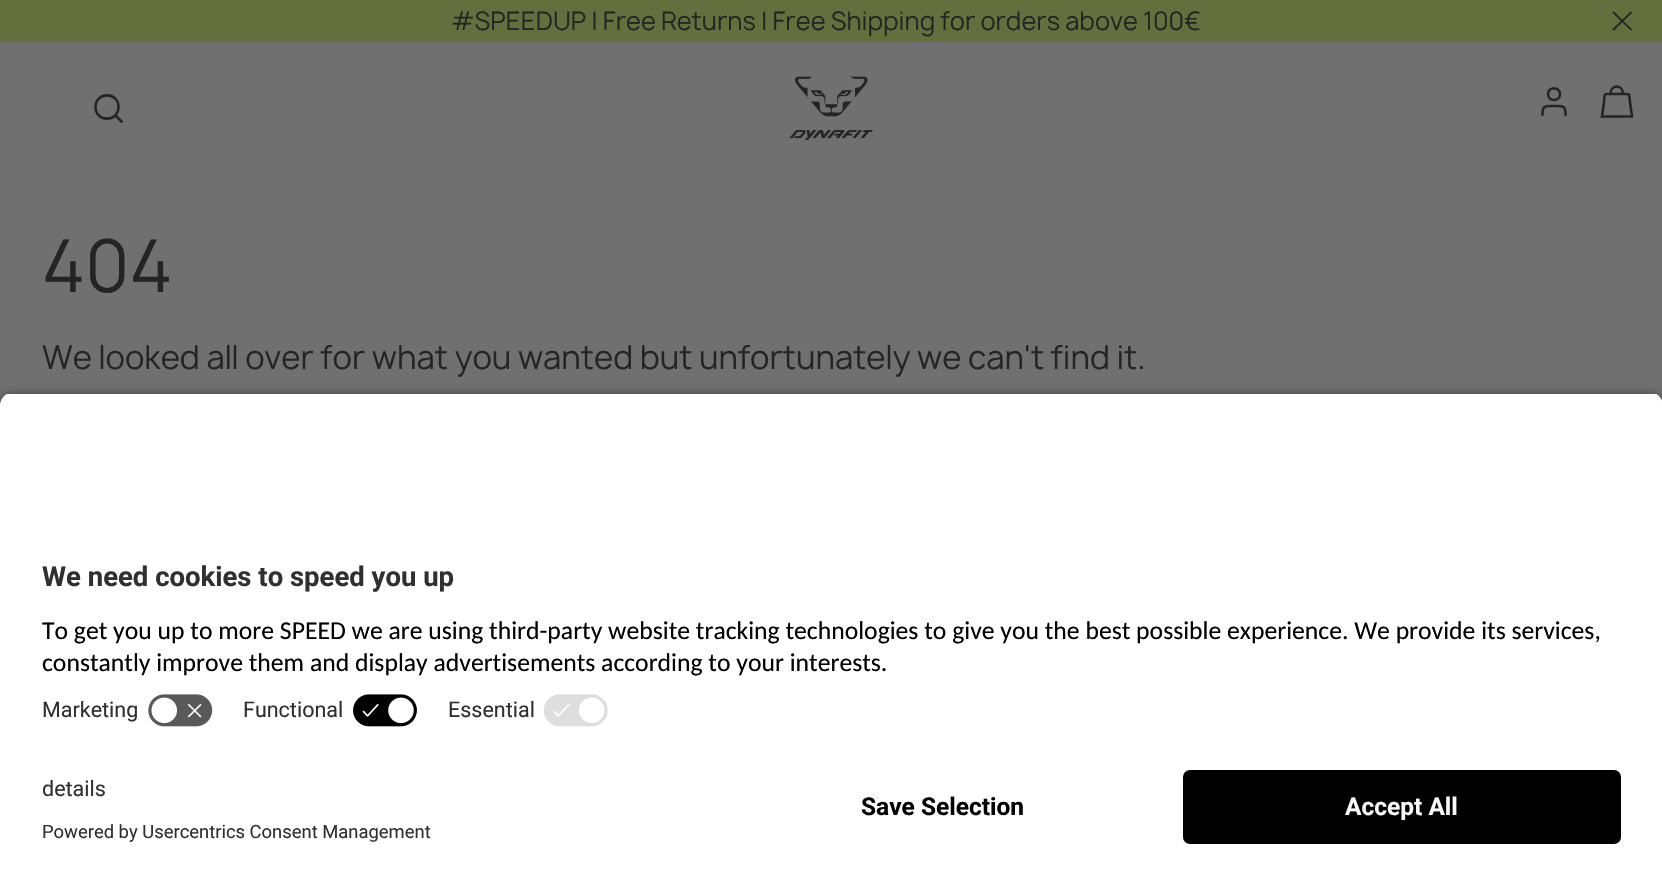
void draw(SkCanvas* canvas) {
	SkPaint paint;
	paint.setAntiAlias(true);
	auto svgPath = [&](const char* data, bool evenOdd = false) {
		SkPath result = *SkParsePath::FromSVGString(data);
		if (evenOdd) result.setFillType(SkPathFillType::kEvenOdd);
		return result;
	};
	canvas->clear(0xff707070);
	paint.setColor(0xff63703d);
	canvas->drawRect(SkRect::MakeXYWH(0, 0, 1662, 42), paint);
	SkFont f1(fontMgr->matchFamilyStyle("Manrope", SkFontStyle::Normal()), 24.5);
	f1.setSubpixel(true);
	paint.setColor(0xff242424);
	canvas->drawString("#SPEEDUP | Free Returns | Free Shipping for orders above 100€", 451, 30, f1, paint);
	paint.setStroke(true);
	paint.setStrokeWidth(1.8);
	paint.setStrokeCap(SkPaint::kSquare_Cap);
	paint.setStrokeJoin(SkPaint::kRound_Join);
	canvas->drawPath(svgPath("M1631 12.5L1613.5 29.5M1613.5 12.5L1631 29.5"), paint);
	paint.setStrokeWidth(2.6);
	canvas->drawPath(svgPath("M121.5 121.5L115.5 115.5M118.5 107C118.5 122.5 95.5 122.5 95.5 107C95.5 91.5 118.5 91.5 118.5 107Z"), paint);
	canvas->drawImageRect(SkImages::DeferredFromEncodedData(SkData::MakeFromFileName("img1.png")), SkRect::MakeXYWH(789, 76, 84, 64), SkSamplingOptions());
	canvas->drawPath(svgPath("M1565.5 114.5C1565.5 105 1562.5 106 1554 106C1545.5 106 1542.5 105 1542.5 114.5M1560 94C1560 102 1548 102 1548 94C1548 86.5 1560 86.5 1560 94Z"), paint);
	paint.setStrokeCap(SkPaint::kButt_Cap);
	paint.setStrokeJoin(SkPaint::kMiter_Join);
	canvas->drawPath(svgPath("M1610.5 94C1603 94 1605 93 1604 102L1602 116.5H1632L1630 102C1628.5 92.5 1631 94 1623 94M1610.5 94C1610.5 84 1623 84 1623 94M1610.5 94H1623"), paint);
	SkFont f2(fontMgr->matchFamilyStyle("Manrope", SkFontStyle::Normal()), 70);
	f2.setSubpixel(true);
	paint.setStroke(false);
	canvas->drawString("404", 42, 292, f2, paint);
	SkFont f3(fontMgr->matchFamilyStyle("Manrope", SkFontStyle::Normal()), 31.5);
	f3.setSubpixel(true);
	canvas->drawString("We looked all over for what you wanted but unfortunately we can't find it.", 42, 369, f3, paint);
	paint.setColor(0xcc000000);
	paint.setMaskFilter(SkMaskFilter::MakeBlur(kNormal_SkBlurStyle, 6));
	canvas->drawRoundRect(SkRect::MakeXYWH(0, 397, 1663, 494), 14, 14, paint);
	paint.setMaskFilter(nullptr);
	canvas->save();
	canvas->clipPath(svgPath("M14 392H1649C1656.5 392 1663 398.5 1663 406V756H0V406C0 398.5 6.5 392 14 392Z"), true);
	paint.setColor(0xffffffff);
	canvas->drawRect(SkRect::MakeXYWH(0, 394, 1662, 362), paint);
	canvas->drawRect(SkRect::MakeXYWH(0, 394, 1662, 292), paint);
	canvas->restore();
	SkFont f4(fontMgr->matchFamilyStyle("Roboto", SkFontStyle::Bold()), 27.5);
	f4.setSubpixel(true);
	paint.setColor(0xff303030);
	canvas->drawString("We need cookies to speed you up", 42, 586, f4, paint);
	SkFont f5(fontMgr->matchFamilyStyle("Carlito", SkFontStyle::Normal()), 25.67);
	f5.setSubpixel(true);
	paint.setColor(0xff000000);
	canvas->drawString("To get you up to more SPEED we are using third-party website tracking technologies to give you the best possible experience. We provide its services,", 42, 639, f5, paint);
	canvas->drawString("constantly improve them and display advertisements according to your interests.", 42, 671, f5, paint);
	SkFont f6(fontMgr->matchFamilyStyle("Roboto", SkFontStyle::Normal()), 21.5);
	f6.setSubpixel(true);
	paint.setColor(0xff303030);
	canvas->drawString("Marketing", 42, 717, f6, paint);
	canvas->drawImageRect(SkImages::DeferredFromEncodedData(SkData::MakeFromFileName("img2.png")), SkRect::MakeXYWH(148, 694, 65, 33), SkSamplingOptions());
	canvas->drawString("Functional", 243, 717, f6, paint);
	canvas->drawImageRect(SkImages::DeferredFromEncodedData(SkData::MakeFromFileName("img3.png")), SkRect::MakeXYWH(353, 694, 64, 33), SkSamplingOptions());
	canvas->drawString("Essential", 448, 717, f6, paint);
	canvas->drawImageRect(SkImages::DeferredFromEncodedData(SkData::MakeFromFileName("img4.png")), SkRect::MakeXYWH(543, 694, 65, 33), SkSamplingOptions());
	paint.setColor(0xffffffff);
	canvas->drawRect(SkRect::MakeXYWH(0, 756, 1662, 129), paint);
	paint.setColor(0xff303030);
	canvas->drawString("details", 42, 796, f6, paint);
	SkFont f7(fontMgr->matchFamilyStyle("Roboto", SkFontStyle::Normal()), 18.4);
	f7.setSubpixel(true);
	canvas->drawString("Powered by Usercentrics Consent Management", 42, 838, f7, paint);
	SkFont f8(fontMgr->matchFamilyStyle("Roboto", SkFontStyle::Bold()), 24.5);
	f8.setSubpixel(true);
	paint.setColor(0xff000000);
	canvas->drawString("Save Selection", 861, 815, f8, paint);
	canvas->drawRoundRect(SkRect::MakeXYWH(1183, 770, 438, 74), 7, 7, paint);
	paint.setColor(0xfff8f8f8);
	canvas->drawString("Accept All", 1345, 815, f8, paint);
}
